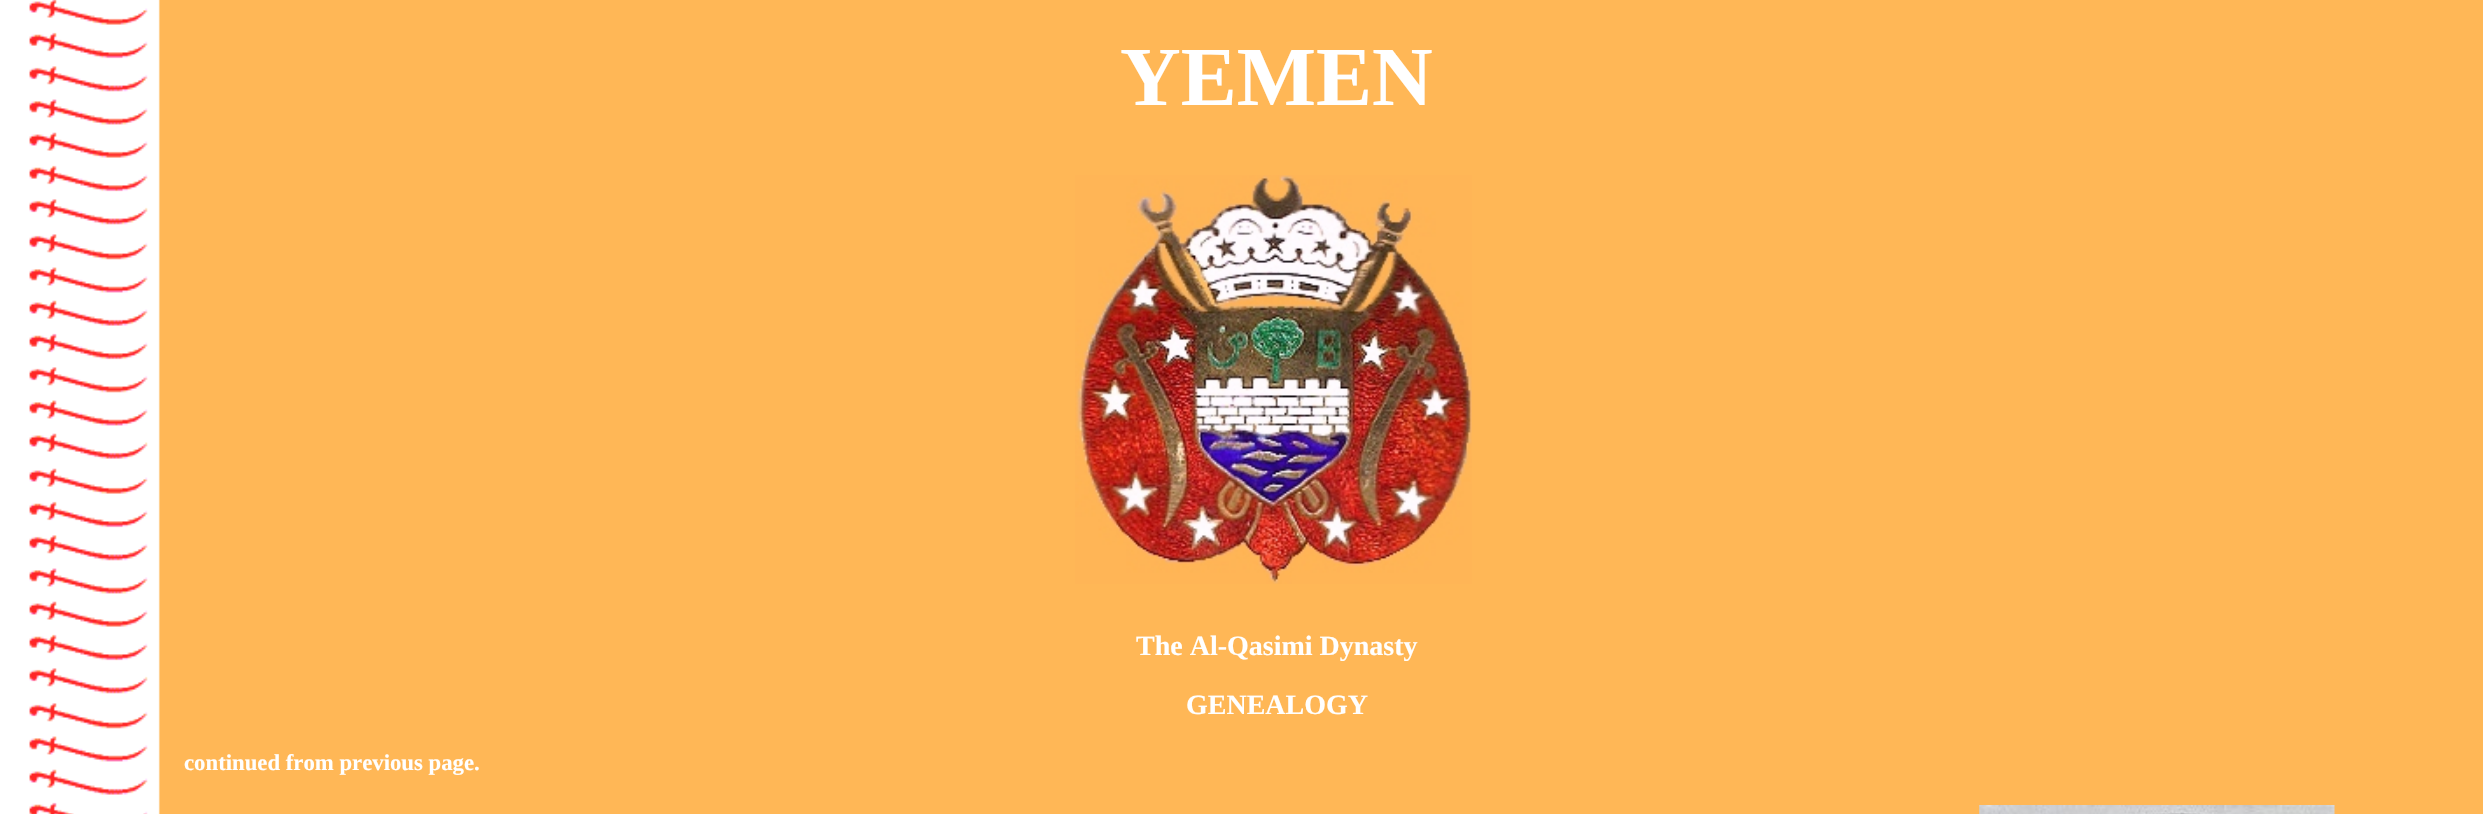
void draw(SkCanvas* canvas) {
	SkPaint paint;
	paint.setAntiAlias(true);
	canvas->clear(0xffffffff);
	canvas->drawImageRect(SkImages::DeferredFromEncodedData(SkData::MakeFromFileName("img1.png")), SkRect::MakeXYWH(0, 0, 2483, 814), SkSamplingOptions());
	SkFont f1(fontMgr->matchFamilyStyle("Liberation Serif", SkFontStyle::Bold()), 84);
	f1.setSubpixel(true);
	paint.setColor(0xffffffff);
	canvas->drawString("YEMEN", 1120, 105, f1, paint);
	canvas->drawImageRect(SkImages::DeferredFromEncodedData(SkData::MakeFromFileName("img2.png")), SkRect::MakeXYWH(1075, 175, 397, 409), SkSamplingOptions());
	SkFont f2(fontMgr->matchFamilyStyle("Liberation Serif", SkFontStyle::Bold()), 28);
	f2.setSubpixel(true);
	canvas->drawString("The Al-Qasimi Dynasty", 1136, 655, f2, paint);
	canvas->drawString("GENEALOGY", 1186, 714, f2, paint);
	SkFont f3(fontMgr->matchFamilyStyle("Liberation Serif", SkFontStyle::Bold()), 22.75);
	f3.setSubpixel(true);
	canvas->drawString("continued from previous page.", 184, 770, f3, paint);
	canvas->drawImageRect(SkImages::DeferredFromEncodedData(SkData::MakeFromFileName("img3.png")), SkRect::MakeXYWH(1979, 805, 356, 9), SkSamplingOptions());
}
